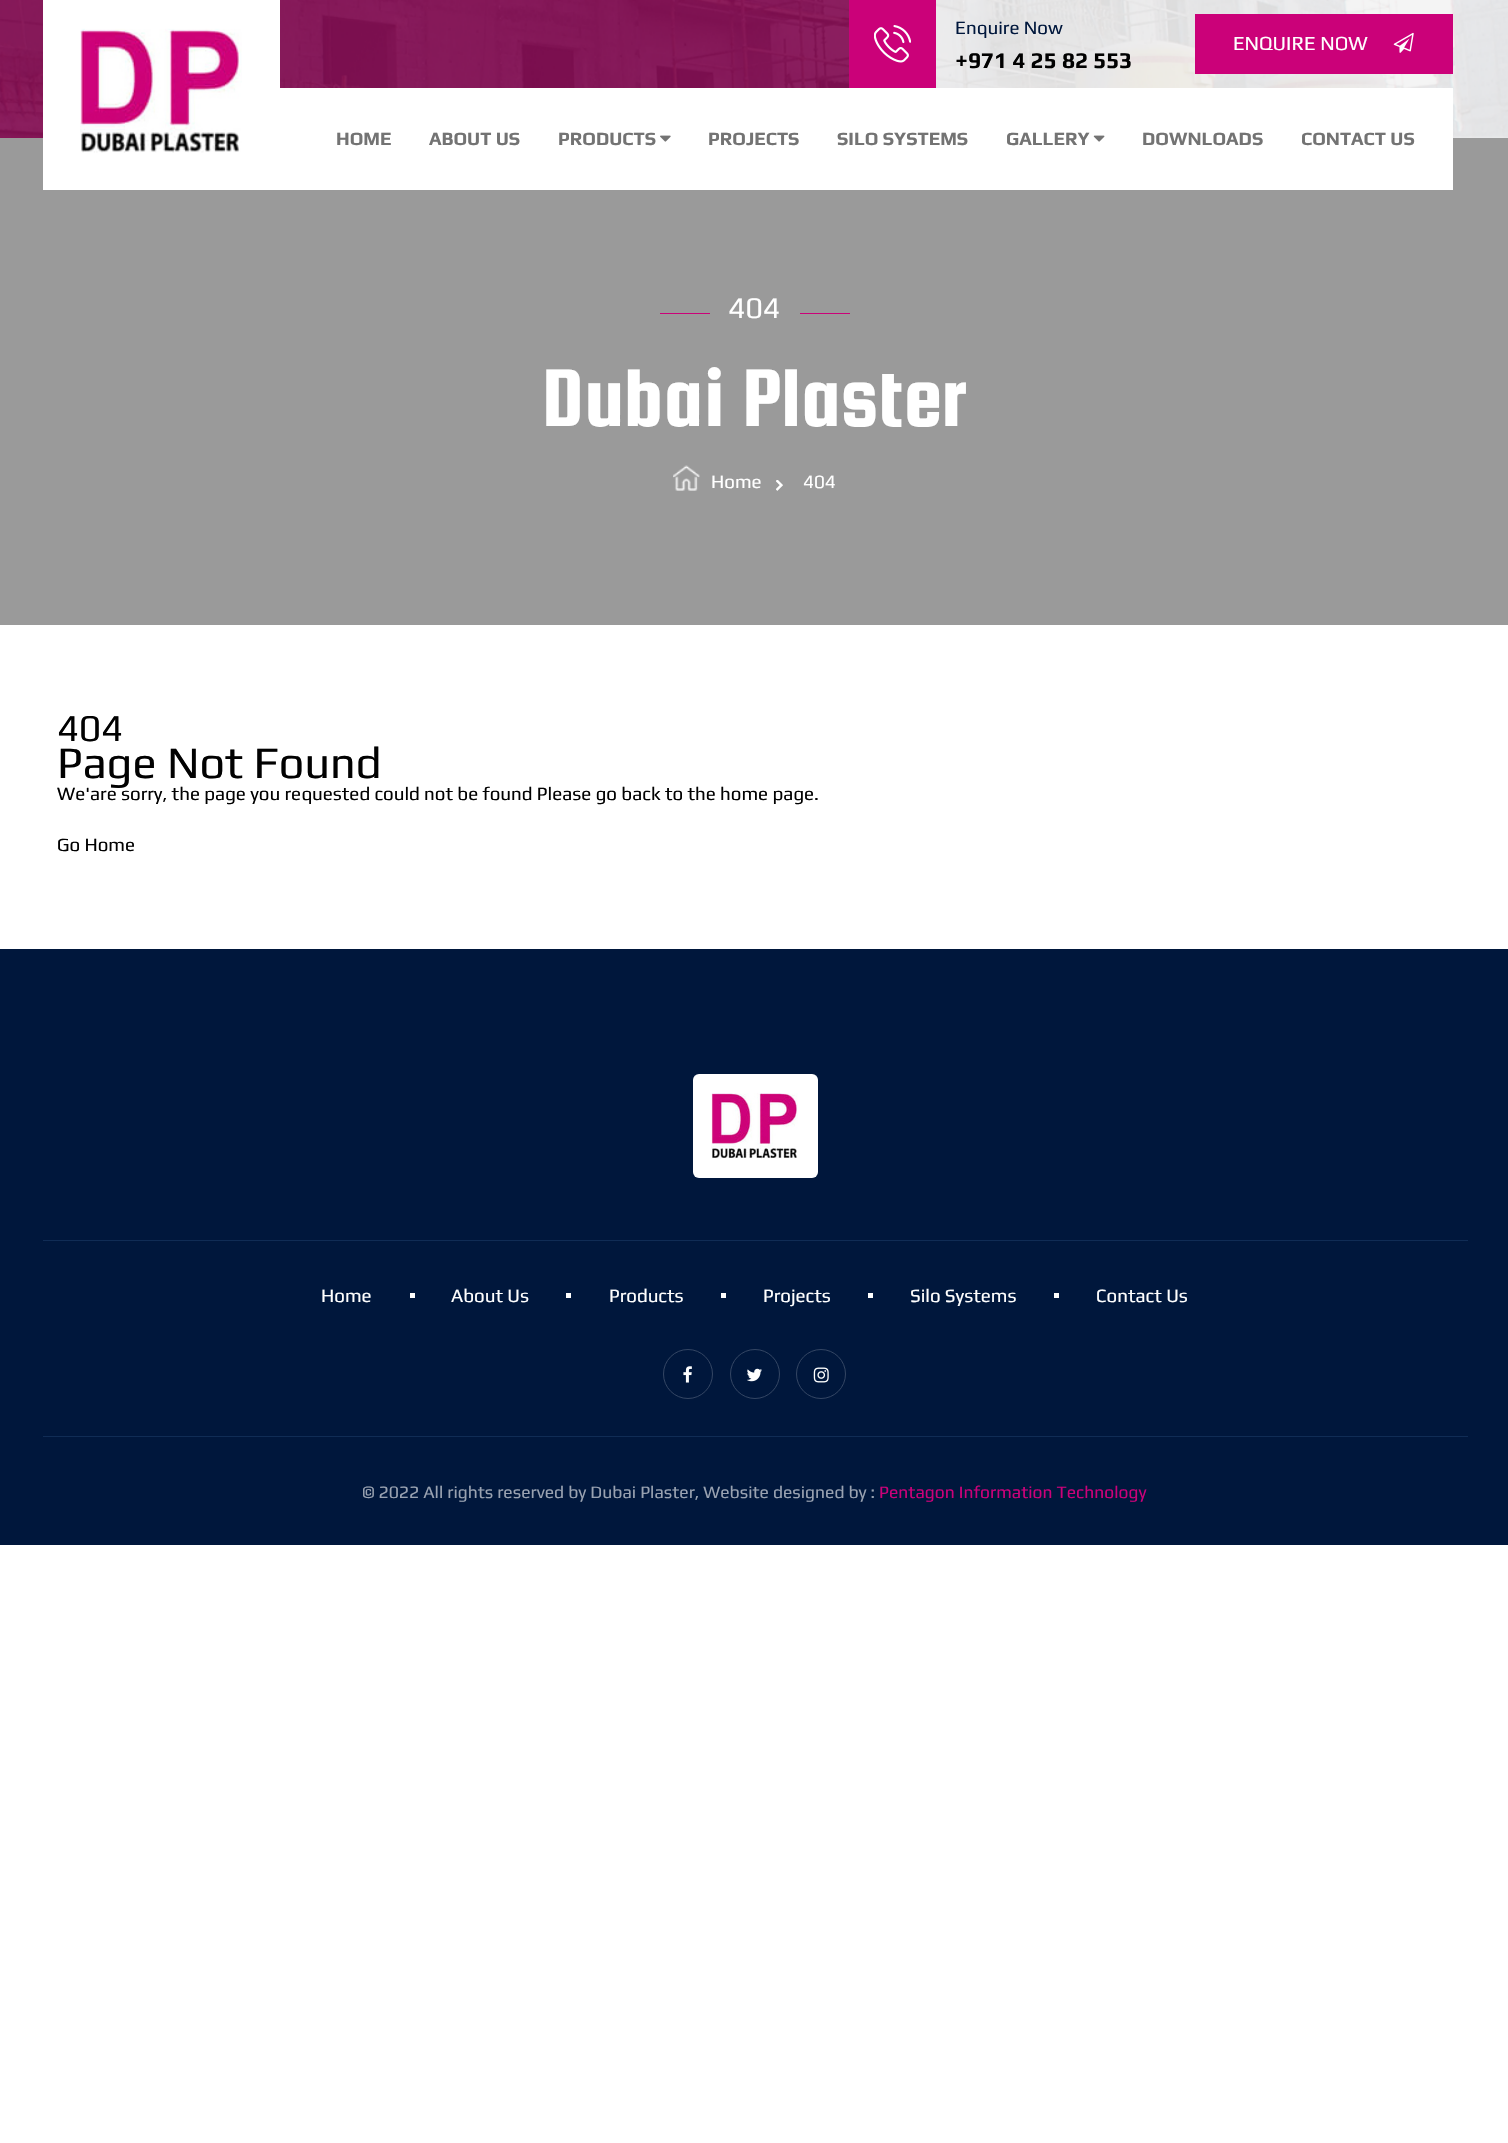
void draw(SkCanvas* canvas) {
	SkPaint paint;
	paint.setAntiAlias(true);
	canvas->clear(0xffffffff);
	paint.setColor(0xfff3f3f3);
	canvas->drawRect(SkRect::MakeXYWH(936, 0, 572, 138), paint);
	paint.setColor(0xff860d54);
	canvas->drawRect(SkRect::MakeXYWH(0, 0, 849, 138), paint);
	canvas->drawImageRect(SkImages::DeferredFromEncodedData(SkData::MakeFromFileName("img1.png")), SkRect::MakeXYWH(0, 0, 1508, 138), SkSamplingOptions());
	paint.setColor(0xffcb0179);
	canvas->drawRect(SkRect::MakeXYWH(849, 0, 87, 88), paint);
	canvas->drawImageRect(SkImages::DeferredFromEncodedData(SkData::MakeFromFileName("img2.png")), SkRect::MakeXYWH(874, 25, 37, 38), SkSamplingOptions());
	SkFont f1(fontMgr->matchFamilyStyle("Play", SkFontStyle::Normal()), 18.75);
	f1.setSubpixel(true);
	paint.setColor(0xff00173c);
	canvas->drawString("Enquire Now", 955, 34, f1, paint);
	SkFont f2(fontMgr->matchFamilyStyle("Play", SkFontStyle::Bold()), 22.5);
	f2.setSubpixel(true);
	paint.setColor(0xff010101);
	canvas->drawString("+971 4 25 82 553", 955, 68, f2, paint);
	paint.setColor(0xffcb0179);
	canvas->drawRect(SkRect::MakeXYWH(1195, 14, 258, 60), paint);
	SkFont f3(fontMgr->matchFamilyStyle("Play", SkFontStyle::Normal()), 20);
	f3.setSubpixel(true);
	paint.setColor(0xffffffff);
	canvas->drawString("ENQUIRE NOW", 1233, 50, f3, paint);
	canvas->drawImageRect(SkImages::DeferredFromEncodedData(SkData::MakeFromFileName("img3.png")), SkRect::MakeXYWH(1393, 32, 21, 21), SkSamplingOptions());
	paint.setColor(0xff9a9a9a);
	canvas->drawRect(SkRect::MakeXYWH(0, 138, 1508, 487), paint);
	paint.setColor(0xffffffff);
	canvas->drawRect(SkRect::MakeXYWH(43, 0, 237, 190), paint);
	canvas->drawImageRect(SkImages::DeferredFromEncodedData(SkData::MakeFromFileName("img4.png")), SkRect::MakeXYWH(80, 28, 162, 125), SkSamplingOptions());
	canvas->drawRect(SkRect::MakeXYWH(280, 88, 1173, 102), paint);
	SkFont f4(fontMgr->matchFamilyStyle("Play", SkFontStyle::Bold()), 18.75);
	f4.setSubpixel(true);
	paint.setColor(0xff737373);
	canvas->drawString("HOME", 336, 145, f4, paint);
	canvas->drawString("ABOUT US", 429, 145, f4, paint);
	canvas->drawString("PRODUCTS", 558, 145, f4, paint);
	canvas->drawImageRect(SkImages::DeferredFromEncodedData(SkData::MakeFromFileName("img5.png")), SkRect::MakeXYWH(660, 135, 11, 7), SkSamplingOptions());
	canvas->drawString("PROJECTS", 708, 145, f4, paint);
	canvas->drawString("SILO SYSTEMS", 837, 145, f4, paint);
	canvas->drawString("GALLERY", 1006, 145, f4, paint);
	canvas->drawImageRect(SkImages::DeferredFromEncodedData(SkData::MakeFromFileName("img6.png")), SkRect::MakeXYWH(1093, 135, 12, 7), SkSamplingOptions());
	canvas->drawString("DOWNLOADS", 1142, 145, f4, paint);
	canvas->drawString("CONTACT US", 1301, 145, f4, paint);
	paint.setColor(0xffcb0179);
	canvas->drawRect(SkRect::MakeXYWH(660, 313, 50, 1), paint);
	SkFont f5(fontMgr->matchFamilyStyle("Play", SkFontStyle::Normal()), 30);
	f5.setSubpixel(true);
	paint.setColor(0xffffffff);
	canvas->drawString("404", 728, 318, f5, paint);
	paint.setColor(0xffcb0179);
	canvas->drawRect(SkRect::MakeXYWH(800, 313, 50, 1), paint);
	SkFont f6(fontMgr->matchFamilyStyle("Squada One", SkFontStyle::Normal()), 87.5);
	f6.setSubpixel(true);
	paint.setColor(0xffffffff);
	canvas->drawString("Dubai Plaster", 542, 426, f6, paint);
	canvas->drawImageRect(SkImages::DeferredFromEncodedData(SkData::MakeFromFileName("img7.png")), SkRect::MakeXYWH(673, 465, 27, 26), SkSamplingOptions());
	canvas->drawString("Home", 711, 488, f1, paint);
	canvas->drawImageRect(SkImages::DeferredFromEncodedData(SkData::MakeFromFileName("img8.png")), SkRect::MakeXYWH(776, 480, 7, 11), SkSamplingOptions());
	canvas->drawString("404", 803, 488, f1, paint);
	SkFont f7(fontMgr->matchFamilyStyle("Play", SkFontStyle::Normal()), 38);
	f7.setSubpixel(true);
	paint.setColor(0xff010101);
	canvas->drawString("404", 57, 741, f7, paint);
	SkFont f8(fontMgr->matchFamilyStyle("Play", SkFontStyle::Normal()), 45);
	f8.setSubpixel(true);
	canvas->drawString("Page Not Found", 57, 778, f8, paint);
	canvas->drawString("We'are sorry, the page you requested could not be found Please go back to the home page.", 57, 800, f1, paint);
	canvas->drawString("Go Home", 57, 851, f1, paint);
	paint.setColor(0xff00173c);
	canvas->drawRect(SkRect::MakeXYWH(0, 949, 1508, 596), paint);
	paint.setColor(0xffffffff);
	canvas->drawRoundRect(SkRect::MakeXYWH(693, 1074, 125, 104), 6, 6, paint);
	canvas->drawImageRect(SkImages::DeferredFromEncodedData(SkData::MakeFromFileName("img9.png")), SkRect::MakeXYWH(711, 1092, 87, 67), SkSamplingOptions());
	paint.setColor(0xff102c55);
	canvas->drawRect(SkRect::MakeXYWH(43, 1240, 1425, 1), paint);
	canvas->drawRect(SkRect::MakeXYWH(43, 1436, 1425, 1), paint);
	paint.setColor(0xffffffff);
	canvas->drawString("Home", 321, 1302, f1, paint);
	canvas->drawRect(SkRect::MakeXYWH(410, 1293, 5, 5), paint);
	canvas->drawString("About Us", 451, 1302, f1, paint);
	canvas->drawRect(SkRect::MakeXYWH(566, 1293, 5, 5), paint);
	canvas->drawString("Products", 609, 1302, f1, paint);
	canvas->drawRect(SkRect::MakeXYWH(721, 1293, 5, 5), paint);
	canvas->drawString("Projects", 763, 1302, f1, paint);
	canvas->drawRect(SkRect::MakeXYWH(868, 1293, 5, 5), paint);
	canvas->drawString("Silo Systems", 910, 1302, f1, paint);
	canvas->drawRect(SkRect::MakeXYWH(1054, 1293, 5, 5), paint);
	canvas->drawString("Contact Us", 1096, 1302, f1, paint);
	paint.setStroke(true);
	paint.setStrokeWidth(1);
	paint.setColor(0xff334563);
	canvas->drawCircle(688, 1374, 24.5, paint);
	canvas->drawImageRect(SkImages::DeferredFromEncodedData(SkData::MakeFromFileName("img10.png")), SkRect::MakeXYWH(683, 1366, 9, 17), SkSamplingOptions());
	canvas->drawCircle(755, 1374, 24.5, paint);
	canvas->drawImageRect(SkImages::DeferredFromEncodedData(SkData::MakeFromFileName("img11.png")), SkRect::MakeXYWH(747, 1368, 15, 14), SkSamplingOptions());
	canvas->drawCircle(821, 1374, 24.5, paint);
	canvas->drawImageRect(SkImages::DeferredFromEncodedData(SkData::MakeFromFileName("img12.png")), SkRect::MakeXYWH(813, 1367, 16, 16), SkSamplingOptions());
	SkFont f9(fontMgr->matchFamilyStyle("Play", SkFontStyle::Normal()), 17.5);
	f9.setSubpixel(true);
	paint.setStroke(false);
	paint.setColor(0xff99a2b1);
	canvas->drawString("© 2022 All rights reserved by Dubai Plaster, Website designed by :", 362, 1498, f9, paint);
	paint.setColor(0xffcb0179);
	canvas->drawString("Pentagon Information Technology", 879, 1498, f9, paint);
}
